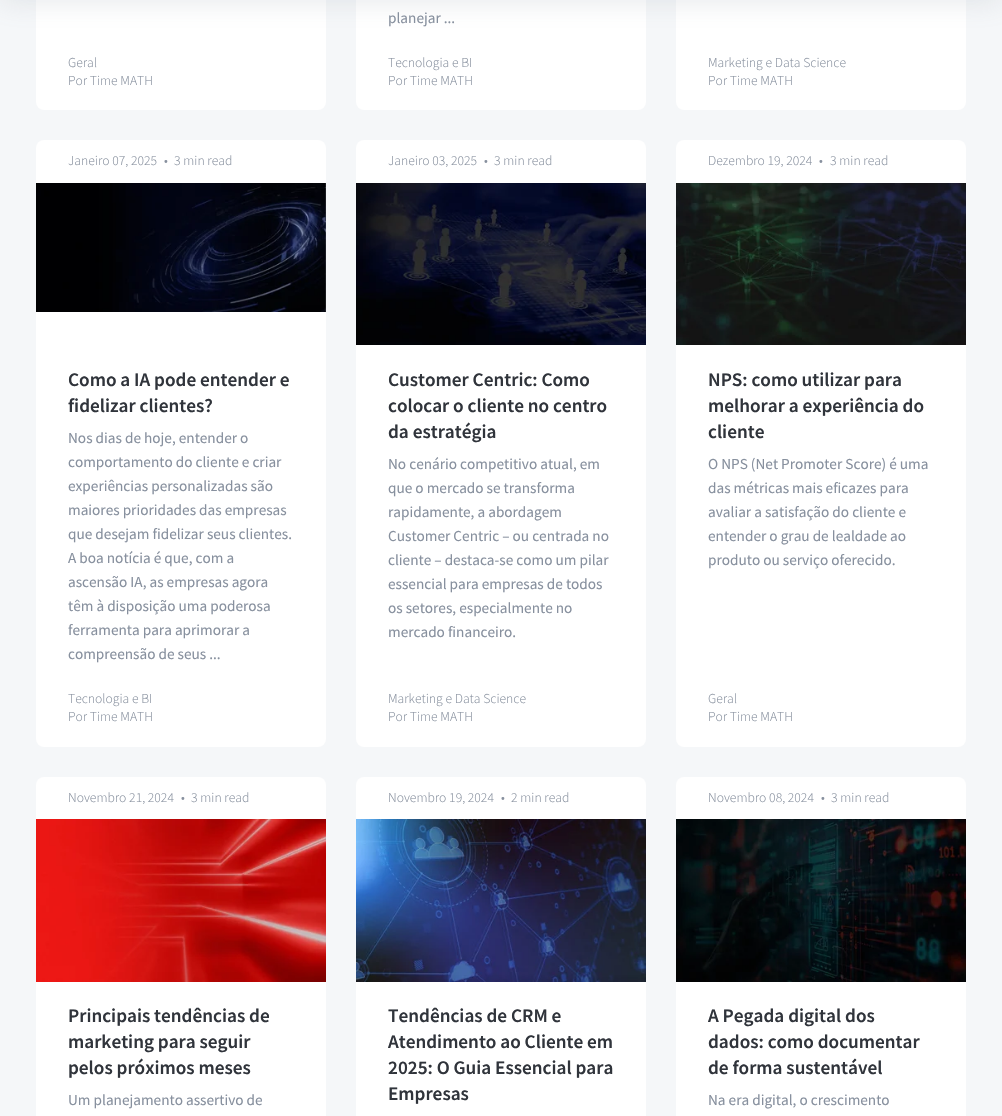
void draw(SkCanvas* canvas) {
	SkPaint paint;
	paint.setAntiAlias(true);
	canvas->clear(0xfff5f7f9);
	paint.setColor(0xffffffff);
	canvas->drawRoundRect(SkRect::MakeXYWH(36, -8, 290, 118), 8, 8, paint);
	canvas->drawRoundRect(SkRect::MakeXYWH(356, -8, 290, 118), 8, 8, paint);
	canvas->drawRoundRect(SkRect::MakeXYWH(676, -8, 290, 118), 8, 8, paint);
	paint.setColor(0x3377838f);
	paint.setMaskFilter(SkMaskFilter::MakeBlur(kNormal_SkBlurStyle, 15));
	canvas->drawRect(SkRect::MakeXYWH(0, -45, 1002, 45), paint);
	paint.setMaskFilter(nullptr);
	SkFont f1(fontMgr->matchFamilyStyle("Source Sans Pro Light", SkFontStyle(300, SkFontStyle::kNormal_Width, SkFontStyle::kUpright_Slant)), 13.6);
	f1.setSubpixel(true);
	paint.setColor(0xff87909e);
	canvas->drawString("Geral", 68, 67, f1, paint);
	canvas->drawString("Por Time MATH", 68, 85, f1, paint);
	SkFont f2(fontMgr->matchFamilyStyle("Source Sans Pro", SkFontStyle::Normal()), 15.25);
	f2.setSubpixel(true);
	canvas->drawString("planejar ...", 388, 23, f2, paint);
	canvas->drawString("Tecnologia e BI", 388, 67, f1, paint);
	canvas->drawString("Por Time MATH", 388, 85, f1, paint);
	canvas->drawString("Marketing e Data Science", 708, 67, f1, paint);
	canvas->drawString("Por Time MATH", 708, 85, f1, paint);
	paint.setColor(0xffffffff);
	canvas->drawRoundRect(SkRect::MakeXYWH(36, 140, 290, 607), 8, 8, paint);
	paint.setColor(0xff87909e);
	canvas->drawString("Janeiro 07, 2025", 68, 165, f1, paint);
	canvas->drawString("•", 164, 165, f1, paint);
	canvas->drawString("3 min read", 174, 165, f1, paint);
	canvas->drawImageRect(SkImages::DeferredFromEncodedData(SkData::MakeFromFileName("img1.png")), SkRect::MakeXYWH(36, 183, 290, 129), SkSamplingOptions());
	SkFont f3(fontMgr->matchFamilyStyle("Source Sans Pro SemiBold", SkFontStyle(600, SkFontStyle::kNormal_Width, SkFontStyle::kUpright_Slant)), 19.25);
	f3.setSubpixel(true);
	paint.setColor(0xff30343b);
	canvas->drawString("Como a IA pode entender e", 68, 386, f3, paint);
	canvas->drawString("fidelizar clientes?", 68, 412, f3, paint);
	paint.setColor(0xff87909e);
	canvas->drawString("Nos dias de hoje, entender o", 68, 443, f2, paint);
	canvas->drawString("comportamento do cliente e criar", 68, 467, f2, paint);
	canvas->drawString("experiências personalizadas são", 68, 491, f2, paint);
	canvas->drawString("maiores prioridades das empresas", 68, 515, f2, paint);
	canvas->drawString("que desejam fidelizar seus clientes.", 68, 539, f2, paint);
	canvas->drawString("A boa notícia é que, com a", 68, 563, f2, paint);
	canvas->drawString("ascensão IA, as empresas agora", 68, 587, f2, paint);
	canvas->drawString("têm à disposição uma poderosa", 68, 611, f2, paint);
	canvas->drawString("ferramenta para aprimorar a", 68, 635, f2, paint);
	canvas->drawString("compreensão de seus ...", 68, 659, f2, paint);
	canvas->drawString("Tecnologia e BI", 68, 703, f1, paint);
	canvas->drawString("Por Time MATH", 68, 721, f1, paint);
	paint.setColor(0xffffffff);
	canvas->drawRoundRect(SkRect::MakeXYWH(356, 140, 290, 607), 8, 8, paint);
	paint.setColor(0xff87909e);
	canvas->drawString("Janeiro 03, 2025", 388, 165, f1, paint);
	canvas->drawString("•", 484, 165, f1, paint);
	canvas->drawString("3 min read", 494, 165, f1, paint);
	canvas->drawImageRect(SkImages::DeferredFromEncodedData(SkData::MakeFromFileName("img2.png")), SkRect::MakeXYWH(356, 183, 290, 162), SkSamplingOptions());
	paint.setColor(0xff30343b);
	canvas->drawString("Customer Centric: Como", 388, 386, f3, paint);
	canvas->drawString("colocar o cliente no centro", 388, 412, f3, paint);
	canvas->drawString("da estratégia", 388, 438, f3, paint);
	paint.setColor(0xff87909e);
	canvas->drawString("No cenário competitivo atual, em", 388, 469, f2, paint);
	canvas->drawString("que o mercado se transforma", 388, 493, f2, paint);
	canvas->drawString("rapidamente, a abordagem", 388, 517, f2, paint);
	canvas->drawString("Customer Centric – ou centrada no", 388, 541, f2, paint);
	canvas->drawString("cliente – destaca-se como um pilar", 388, 565, f2, paint);
	canvas->drawString("essencial para empresas de todos", 388, 589, f2, paint);
	canvas->drawString("os setores, especialmente no", 388, 613, f2, paint);
	canvas->drawString("mercado financeiro.", 388, 637, f2, paint);
	canvas->drawString("Marketing e Data Science", 388, 703, f1, paint);
	canvas->drawString("Por Time MATH", 388, 721, f1, paint);
	paint.setColor(0xffffffff);
	canvas->drawRoundRect(SkRect::MakeXYWH(676, 140, 290, 607), 8, 8, paint);
	paint.setColor(0xff87909e);
	canvas->drawString("Dezembro 19, 2024", 708, 165, f1, paint);
	canvas->drawString("•", 819, 165, f1, paint);
	canvas->drawString("3 min read", 830, 165, f1, paint);
	canvas->drawImageRect(SkImages::DeferredFromEncodedData(SkData::MakeFromFileName("img3.png")), SkRect::MakeXYWH(676, 183, 290, 162), SkSamplingOptions());
	paint.setColor(0xff30343b);
	canvas->drawString("NPS: como utilizar para", 708, 386, f3, paint);
	canvas->drawString("melhorar a experiência do", 708, 412, f3, paint);
	canvas->drawString("cliente", 708, 438, f3, paint);
	paint.setColor(0xff87909e);
	canvas->drawString("O NPS (Net Promoter Score) é uma", 708, 469, f2, paint);
	canvas->drawString("das métricas mais eficazes para", 708, 493, f2, paint);
	canvas->drawString("avaliar a satisfação do cliente e", 708, 517, f2, paint);
	canvas->drawString("entender o grau de lealdade ao", 708, 541, f2, paint);
	canvas->drawString("produto ou serviço oferecido.", 708, 565, f2, paint);
	canvas->drawString("Geral", 708, 703, f1, paint);
	canvas->drawString("Por Time MATH", 708, 721, f1, paint);
	paint.setColor(0xffffffff);
	canvas->drawRoundRect(SkRect::MakeXYWH(36, 777, 290, 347), 8, 8, paint);
	paint.setColor(0xff87909e);
	canvas->drawString("Novembro 21, 2024", 68, 802, f1, paint);
	canvas->drawString("•", 181, 802, f1, paint);
	canvas->drawString("3 min read", 191, 802, f1, paint);
	canvas->drawImageRect(SkImages::DeferredFromEncodedData(SkData::MakeFromFileName("img4.png")), SkRect::MakeXYWH(36, 819, 290, 163), SkSamplingOptions());
	paint.setColor(0xff30343b);
	canvas->drawString("Principais tendências de", 68, 1022, f3, paint);
	canvas->drawString("marketing para seguir", 68, 1048, f3, paint);
	canvas->drawString("pelos próximos meses", 68, 1074, f3, paint);
	paint.setColor(0xff87909e);
	canvas->drawString("Um planejamento assertivo de", 68, 1105, f2, paint);
	paint.setColor(0xffffffff);
	canvas->drawRoundRect(SkRect::MakeXYWH(356, 777, 290, 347), 8, 8, paint);
	paint.setColor(0xff87909e);
	canvas->drawString("Novembro 19, 2024", 388, 802, f1, paint);
	canvas->drawString("•", 501, 802, f1, paint);
	canvas->drawString("2 min read", 511, 802, f1, paint);
	canvas->drawImageRect(SkImages::DeferredFromEncodedData(SkData::MakeFromFileName("img5.png")), SkRect::MakeXYWH(356, 819, 290, 163), SkSamplingOptions());
	paint.setColor(0xff30343b);
	canvas->drawString("Tendências de CRM e", 388, 1022, f3, paint);
	canvas->drawString("Atendimento ao Cliente em", 388, 1048, f3, paint);
	canvas->drawString("2025: O Guia Essencial para", 388, 1074, f3, paint);
	canvas->drawString("Empresas", 388, 1100, f3, paint);
	paint.setColor(0xffffffff);
	canvas->drawRoundRect(SkRect::MakeXYWH(676, 777, 290, 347), 8, 8, paint);
	paint.setColor(0xff87909e);
	canvas->drawString("Novembro 08, 2024", 708, 802, f1, paint);
	canvas->drawString("•", 821, 802, f1, paint);
	canvas->drawString("3 min read", 831, 802, f1, paint);
	canvas->drawImageRect(SkImages::DeferredFromEncodedData(SkData::MakeFromFileName("img6.png")), SkRect::MakeXYWH(676, 819, 290, 163), SkSamplingOptions());
	paint.setColor(0xff30343b);
	canvas->drawString("A Pegada digital dos", 708, 1022, f3, paint);
	canvas->drawString("dados: como documentar", 708, 1048, f3, paint);
	canvas->drawString("de forma sustentável", 708, 1074, f3, paint);
	paint.setColor(0xff87909e);
	canvas->drawString("Na era digital, o crescimento", 708, 1105, f2, paint);
}
